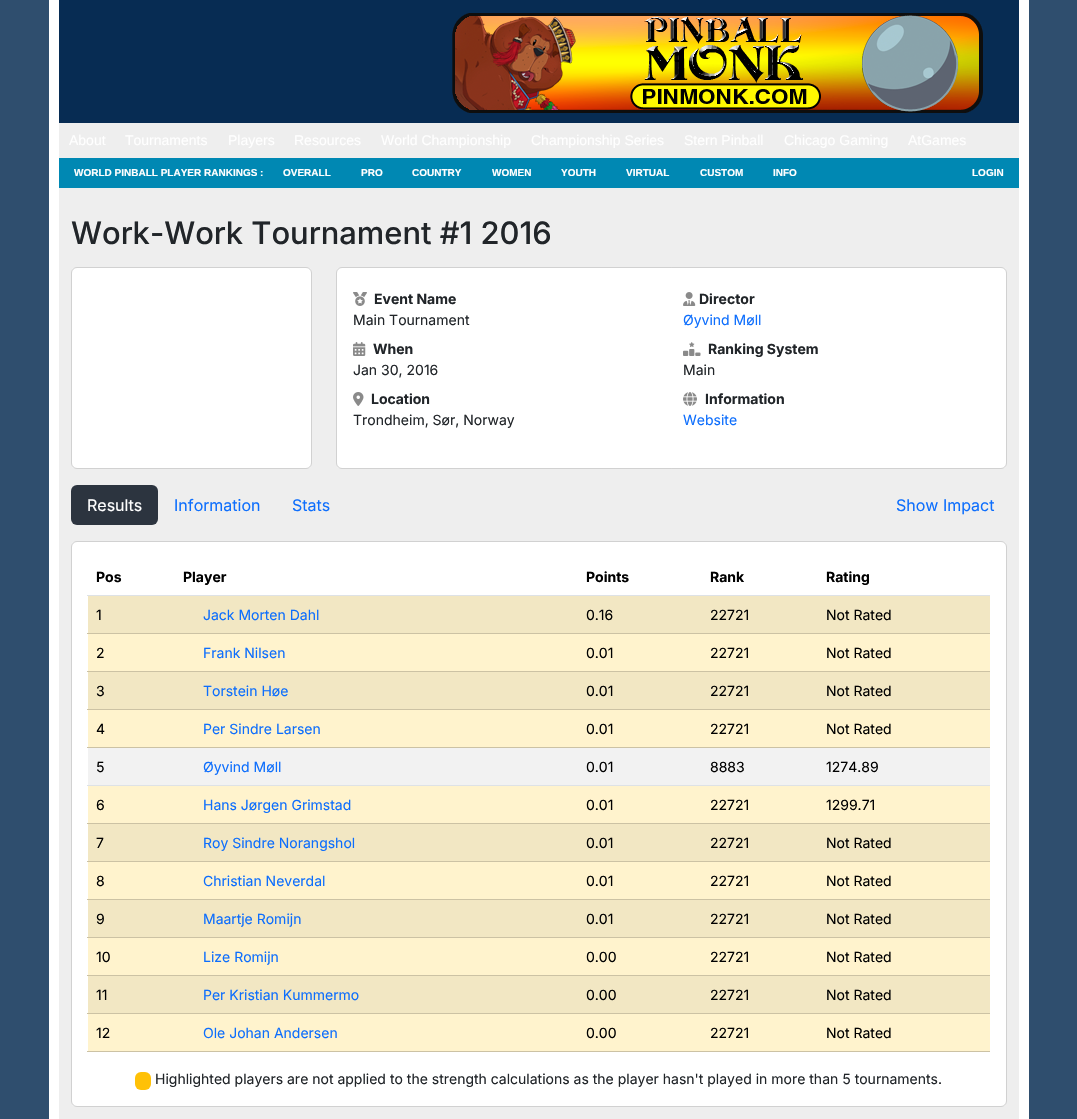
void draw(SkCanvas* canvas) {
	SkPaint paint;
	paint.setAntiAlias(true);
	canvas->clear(0xff2f4e6e);
	paint.setColor(0xffeeeeee);
	canvas->drawRect(SkRect::MakeXYWH(59, 123, 960, 35), paint);
	paint.setColor(0xff072c53);
	canvas->drawRect(SkRect::MakeXYWH(59, 0, 960, 123), paint);
	canvas->drawImageRect(SkImages::DeferredFromEncodedData(SkData::MakeFromFileName("img1.png")), SkRect::MakeXYWH(452, 13, 531, 100), SkSamplingOptions());
	SkFont f1(fontMgr->matchFamilyStyle("Liberation Sans", SkFontStyle::Normal()), 14);
	f1.setSubpixel(true);
	paint.setColor(0xffffffff);
	canvas->drawString("About", 69, 145, f1, paint);
	canvas->drawString("Tournaments", 125, 145, f1, paint);
	canvas->drawString("Players", 228, 145, f1, paint);
	canvas->drawString("Resources", 294, 145, f1, paint);
	canvas->drawString("World Championship", 381, 145, f1, paint);
	canvas->drawString("Championship Series", 531, 145, f1, paint);
	canvas->drawString("Stern Pinball", 684, 145, f1, paint);
	canvas->drawString("Chicago Gaming", 784, 145, f1, paint);
	canvas->drawString("AtGames", 908, 145, f1, paint);
	paint.setColor(0xff0088b3);
	canvas->drawRect(SkRect::MakeXYWH(59, 158, 960, 30), paint);
	SkFont f2(fontMgr->matchFamilyStyle("Liberation Sans", SkFontStyle::Bold()), 10);
	f2.setSubpixel(true);
	paint.setColor(0xffffffff);
	canvas->drawString("WORLD PINBALL PLAYER RANKINGS :", 74, 176, f2, paint);
	canvas->drawString("OVERALL", 283, 176, f2, paint);
	canvas->drawString("PRO", 361, 176, f2, paint);
	canvas->drawString("COUNTRY", 412, 176, f2, paint);
	canvas->drawString("WOMEN", 492, 176, f2, paint);
	canvas->drawString("YOUTH", 561, 176, f2, paint);
	canvas->drawString("VIRTUAL", 626, 176, f2, paint);
	canvas->drawString("CUSTOM", 700, 176, f2, paint);
	canvas->drawString("INFO", 773, 176, f2, paint);
	canvas->drawString("LOGIN", 972, 176, f2, paint);
	paint.setColor(0xffeeeeee);
	canvas->drawRect(SkRect::MakeXYWH(59, 188, 960, 931), paint);
	paint.setColor(0xffffffff);
	canvas->drawRect(SkRect::MakeXYWH(1019, 0, 10, 1119), paint);
	canvas->drawRect(SkRect::MakeXYWH(49, 0, 10, 1119), paint);
	SkFont f3(fontMgr->matchFamilyStyle("Inter", SkFontStyle(500, SkFontStyle::kNormal_Width, SkFontStyle::kUpright_Slant)), 30.9);
	f3.setSubpixel(true);
	paint.setColor(0xff212529);
	canvas->drawString("Work-Work Tournament #1 2016", 71, 244, f3, paint);
	paint.setColor(0xffffffff);
	canvas->drawRoundRect(SkRect::MakeXYWH(71, 267, 241, 202), 6, 6, paint);
	paint.setStroke(true);
	paint.setStrokeWidth(1);
	paint.setColor(0x2e000000);
	canvas->drawRoundRect(SkRect::MakeXYWH(71.5, 267.5, 240, 201), 5.5, 5.5, paint);
	paint.setStroke(false);
	paint.setColor(0xffffffff);
	canvas->drawRoundRect(SkRect::MakeXYWH(336, 267, 671, 202), 6, 6, paint);
	paint.setStroke(true);
	paint.setColor(0x2e000000);
	canvas->drawRoundRect(SkRect::MakeXYWH(336.5, 267.5, 670, 201), 5.5, 5.5, paint);
	canvas->drawImageRect(SkImages::DeferredFromEncodedData(SkData::MakeFromFileName("img2.png")), SkRect::MakeXYWH(353, 292, 14, 14), SkSamplingOptions());
	SkFont f4(fontMgr->matchFamilyStyle("Inter", SkFontStyle::Bold()), 14);
	f4.setSubpixel(true);
	paint.setStroke(false);
	paint.setColor(0xff212529);
	canvas->drawString("Event Name", 374, 304, f4, paint);
	SkFont f5(fontMgr->matchFamilyStyle("Inter", SkFontStyle::Normal()), 14);
	f5.setSubpixel(true);
	canvas->drawString("Main Tournament", 353, 325, f5, paint);
	canvas->drawImageRect(SkImages::DeferredFromEncodedData(SkData::MakeFromFileName("img3.png")), SkRect::MakeXYWH(353, 342, 13, 14), SkSamplingOptions());
	canvas->drawString("When", 373, 354, f4, paint);
	canvas->drawString("Jan 30, 2016", 353, 375, f5, paint);
	canvas->drawImageRect(SkImages::DeferredFromEncodedData(SkData::MakeFromFileName("img4.png")), SkRect::MakeXYWH(353, 392, 11, 14), SkSamplingOptions());
	canvas->drawString("Location", 371, 404, f4, paint);
	canvas->drawString("Trondheim, Sør, Norway", 353, 425, f5, paint);
	canvas->drawImageRect(SkImages::DeferredFromEncodedData(SkData::MakeFromFileName("img5.png")), SkRect::MakeXYWH(683, 292, 13, 14), SkSamplingOptions());
	canvas->drawString("Director", 699, 304, f4, paint);
	paint.setColor(0xff0d6efd);
	canvas->drawString("Øyvind Møll", 683, 325, f5, paint);
	canvas->drawImageRect(SkImages::DeferredFromEncodedData(SkData::MakeFromFileName("img6.png")), SkRect::MakeXYWH(683, 342, 18, 14), SkSamplingOptions());
	paint.setColor(0xff212529);
	canvas->drawString("Ranking System", 708, 354, f4, paint);
	canvas->drawString("Main", 683, 375, f5, paint);
	canvas->drawImageRect(SkImages::DeferredFromEncodedData(SkData::MakeFromFileName("img7.png")), SkRect::MakeXYWH(683, 392, 14, 14), SkSamplingOptions());
	canvas->drawString("Information", 705, 404, f4, paint);
	paint.setColor(0xff0d6efd);
	canvas->drawString("Website", 683, 425, f5, paint);
	paint.setColor(0xff2c343f);
	canvas->drawRoundRect(SkRect::MakeXYWH(71, 485, 87, 40), 6, 6, paint);
	SkFont f6(fontMgr->matchFamilyStyle("Inter", SkFontStyle::Normal()), 16);
	f6.setSubpixel(true);
	paint.setColor(0xffffffff);
	canvas->drawString("Results", 87, 511, f6, paint);
	paint.setColor(0xff0d6efd);
	canvas->drawString("Information", 174, 511, f6, paint);
	canvas->drawString("Stats", 292, 511, f6, paint);
	canvas->drawString("Show Impact", 896, 511, f6, paint);
	paint.setColor(0xffffffff);
	canvas->drawRoundRect(SkRect::MakeXYWH(71, 541, 936, 566), 6, 6, paint);
	paint.setStroke(true);
	paint.setColor(0x2e000000);
	canvas->drawRoundRect(SkRect::MakeXYWH(71.5, 541.5, 935, 565), 5.5, 5.5, paint);
	paint.setStroke(false);
	paint.setColor(0xff000000);
	canvas->drawString("Pos", 96, 582, f4, paint);
	canvas->drawString("Player", 183, 582, f4, paint);
	canvas->drawString("Points", 586, 582, f4, paint);
	canvas->drawString("Rank", 710, 582, f4, paint);
	paint.setColor(0xffdee2e6);
	canvas->drawRect(SkRect::MakeXYWH(87, 595, 903, 1), paint);
	paint.setColor(0xff000000);
	canvas->drawString("Rating", 826, 582, f4, paint);
	paint.setColor(0xfff2e7c3);
	canvas->drawRect(SkRect::MakeXYWH(88, 596, 902, 37), paint);
	paint.setColor(0xff000000);
	canvas->drawString("1", 96, 620, f5, paint);
	paint.setColor(0xff0d6efd);
	canvas->drawString("Jack Morten Dahl", 203, 620, f5, paint);
	paint.setColor(0xff000000);
	canvas->drawString("0.16", 586, 620, f5, paint);
	canvas->drawString("22721", 710, 620, f5, paint);
	paint.setColor(0xffccc2a4);
	canvas->drawRect(SkRect::MakeXYWH(87, 633, 903, 1), paint);
	paint.setColor(0xff000000);
	canvas->drawString("Not Rated", 826, 620, f5, paint);
	paint.setColor(0xfffff3cd);
	canvas->drawRect(SkRect::MakeXYWH(88, 634, 902, 37), paint);
	paint.setColor(0xff000000);
	canvas->drawString("2", 96, 658, f5, paint);
	paint.setColor(0xff0d6efd);
	canvas->drawString("Frank Nilsen", 203, 658, f5, paint);
	paint.setColor(0xff000000);
	canvas->drawString("0.01", 586, 658, f5, paint);
	canvas->drawString("22721", 710, 658, f5, paint);
	paint.setColor(0xffccc2a4);
	canvas->drawRect(SkRect::MakeXYWH(87, 671, 903, 1), paint);
	paint.setColor(0xff000000);
	canvas->drawString("Not Rated", 826, 658, f5, paint);
	paint.setColor(0xfff2e7c3);
	canvas->drawRect(SkRect::MakeXYWH(88, 672, 902, 37), paint);
	paint.setColor(0xff000000);
	canvas->drawString("3", 96, 696, f5, paint);
	paint.setColor(0xff0d6efd);
	canvas->drawString("Torstein Høe", 203, 696, f5, paint);
	paint.setColor(0xff000000);
	canvas->drawString("0.01", 586, 696, f5, paint);
	canvas->drawString("22721", 710, 696, f5, paint);
	paint.setColor(0xffccc2a4);
	canvas->drawRect(SkRect::MakeXYWH(87, 709, 903, 1), paint);
	paint.setColor(0xff000000);
	canvas->drawString("Not Rated", 826, 696, f5, paint);
	paint.setColor(0xfffff3cd);
	canvas->drawRect(SkRect::MakeXYWH(88, 710, 902, 37), paint);
	paint.setColor(0xff000000);
	canvas->drawString("4", 96, 734, f5, paint);
	paint.setColor(0xff0d6efd);
	canvas->drawString("Per Sindre Larsen", 203, 734, f5, paint);
	paint.setColor(0xff000000);
	canvas->drawString("0.01", 586, 734, f5, paint);
	canvas->drawString("22721", 710, 734, f5, paint);
	paint.setColor(0xffccc2a4);
	canvas->drawRect(SkRect::MakeXYWH(87, 747, 903, 1), paint);
	paint.setColor(0xff000000);
	canvas->drawString("Not Rated", 826, 734, f5, paint);
	paint.setColor(0xfff2f2f2);
	canvas->drawRect(SkRect::MakeXYWH(88, 748, 902, 37), paint);
	paint.setColor(0xff000000);
	canvas->drawString("5", 96, 772, f5, paint);
	paint.setColor(0xff0d6efd);
	canvas->drawString("Øyvind Møll", 203, 772, f5, paint);
	paint.setColor(0xff000000);
	canvas->drawString("0.01", 586, 772, f5, paint);
	canvas->drawString("8883", 710, 772, f5, paint);
	paint.setColor(0xffdee2e6);
	canvas->drawRect(SkRect::MakeXYWH(87, 785, 903, 1), paint);
	paint.setColor(0xff000000);
	canvas->drawString("1274.89", 826, 772, f5, paint);
	paint.setColor(0xfffff3cd);
	canvas->drawRect(SkRect::MakeXYWH(88, 786, 902, 37), paint);
	paint.setColor(0xff000000);
	canvas->drawString("6", 96, 810, f5, paint);
	paint.setColor(0xff0d6efd);
	canvas->drawString("Hans Jørgen Grimstad", 203, 810, f5, paint);
	paint.setColor(0xff000000);
	canvas->drawString("0.01", 586, 810, f5, paint);
	canvas->drawString("22721", 710, 810, f5, paint);
	paint.setColor(0xffccc2a4);
	canvas->drawRect(SkRect::MakeXYWH(87, 823, 903, 1), paint);
	paint.setColor(0xff000000);
	canvas->drawString("1299.71", 826, 810, f5, paint);
	paint.setColor(0xfff2e7c3);
	canvas->drawRect(SkRect::MakeXYWH(88, 824, 902, 37), paint);
	paint.setColor(0xff000000);
	canvas->drawString("7", 96, 848, f5, paint);
	paint.setColor(0xff0d6efd);
	canvas->drawString("Roy Sindre Norangshol", 203, 848, f5, paint);
	paint.setColor(0xff000000);
	canvas->drawString("0.01", 586, 848, f5, paint);
	canvas->drawString("22721", 710, 848, f5, paint);
	paint.setColor(0xffccc2a4);
	canvas->drawRect(SkRect::MakeXYWH(87, 861, 903, 1), paint);
	paint.setColor(0xff000000);
	canvas->drawString("Not Rated", 826, 848, f5, paint);
	paint.setColor(0xfffff3cd);
	canvas->drawRect(SkRect::MakeXYWH(88, 862, 902, 37), paint);
	paint.setColor(0xff000000);
	canvas->drawString("8", 96, 886, f5, paint);
	paint.setColor(0xff0d6efd);
	canvas->drawString("Christian Neverdal", 203, 886, f5, paint);
	paint.setColor(0xff000000);
	canvas->drawString("0.01", 586, 886, f5, paint);
	canvas->drawString("22721", 710, 886, f5, paint);
	paint.setColor(0xffccc2a4);
	canvas->drawRect(SkRect::MakeXYWH(87, 899, 903, 1), paint);
	paint.setColor(0xff000000);
	canvas->drawString("Not Rated", 826, 886, f5, paint);
	paint.setColor(0xfff2e7c3);
	canvas->drawRect(SkRect::MakeXYWH(88, 900, 902, 37), paint);
	paint.setColor(0xff000000);
	canvas->drawString("9", 96, 924, f5, paint);
	paint.setColor(0xff0d6efd);
	canvas->drawString("Maartje Romijn", 203, 924, f5, paint);
	paint.setColor(0xff000000);
	canvas->drawString("0.01", 586, 924, f5, paint);
	canvas->drawString("22721", 710, 924, f5, paint);
	paint.setColor(0xffccc2a4);
	canvas->drawRect(SkRect::MakeXYWH(87, 937, 903, 1), paint);
	paint.setColor(0xff000000);
	canvas->drawString("Not Rated", 826, 924, f5, paint);
	paint.setColor(0xfffff3cd);
	canvas->drawRect(SkRect::MakeXYWH(88, 938, 902, 37), paint);
	paint.setColor(0xff000000);
	canvas->drawString("10", 96, 962, f5, paint);
	paint.setColor(0xff0d6efd);
	canvas->drawString("Lize Romijn", 203, 962, f5, paint);
	paint.setColor(0xff000000);
	canvas->drawString("0.00", 586, 962, f5, paint);
	canvas->drawString("22721", 710, 962, f5, paint);
	paint.setColor(0xffccc2a4);
	canvas->drawRect(SkRect::MakeXYWH(87, 975, 903, 1), paint);
	paint.setColor(0xff000000);
	canvas->drawString("Not Rated", 826, 962, f5, paint);
	paint.setColor(0xfff2e7c3);
	canvas->drawRect(SkRect::MakeXYWH(88, 976, 902, 37), paint);
	paint.setColor(0xff000000);
	canvas->drawString("11", 96, 1000, f5, paint);
	paint.setColor(0xff0d6efd);
	canvas->drawString("Per Kristian Kummermo", 203, 1000, f5, paint);
	paint.setColor(0xff000000);
	canvas->drawString("0.00", 586, 1000, f5, paint);
	canvas->drawString("22721", 710, 1000, f5, paint);
	paint.setColor(0xffccc2a4);
	canvas->drawRect(SkRect::MakeXYWH(87, 1013, 903, 1), paint);
	paint.setColor(0xff000000);
	canvas->drawString("Not Rated", 826, 1000, f5, paint);
	paint.setColor(0xfffff3cd);
	canvas->drawRect(SkRect::MakeXYWH(88, 1014, 902, 37), paint);
	paint.setColor(0xff000000);
	canvas->drawString("12", 96, 1038, f5, paint);
	paint.setColor(0xff0d6efd);
	canvas->drawString("Ole Johan Andersen", 203, 1038, f5, paint);
	paint.setColor(0xff000000);
	canvas->drawString("0.00", 586, 1038, f5, paint);
	canvas->drawString("22721", 710, 1038, f5, paint);
	paint.setColor(0xffccc2a4);
	canvas->drawRect(SkRect::MakeXYWH(87, 1051, 903, 1), paint);
	paint.setColor(0xff000000);
	canvas->drawString("Not Rated", 826, 1038, f5, paint);
	paint.setColor(0xffffc107);
	canvas->drawRoundRect(SkRect::MakeXYWH(135, 1072, 16, 18), 6, 6, paint);
	paint.setColor(0xff212529);
	canvas->drawString("Highlighted players are not applied to the strength calculations as the player hasn't played in more than 5 tournaments.", 155, 1084, f5, paint);
}
